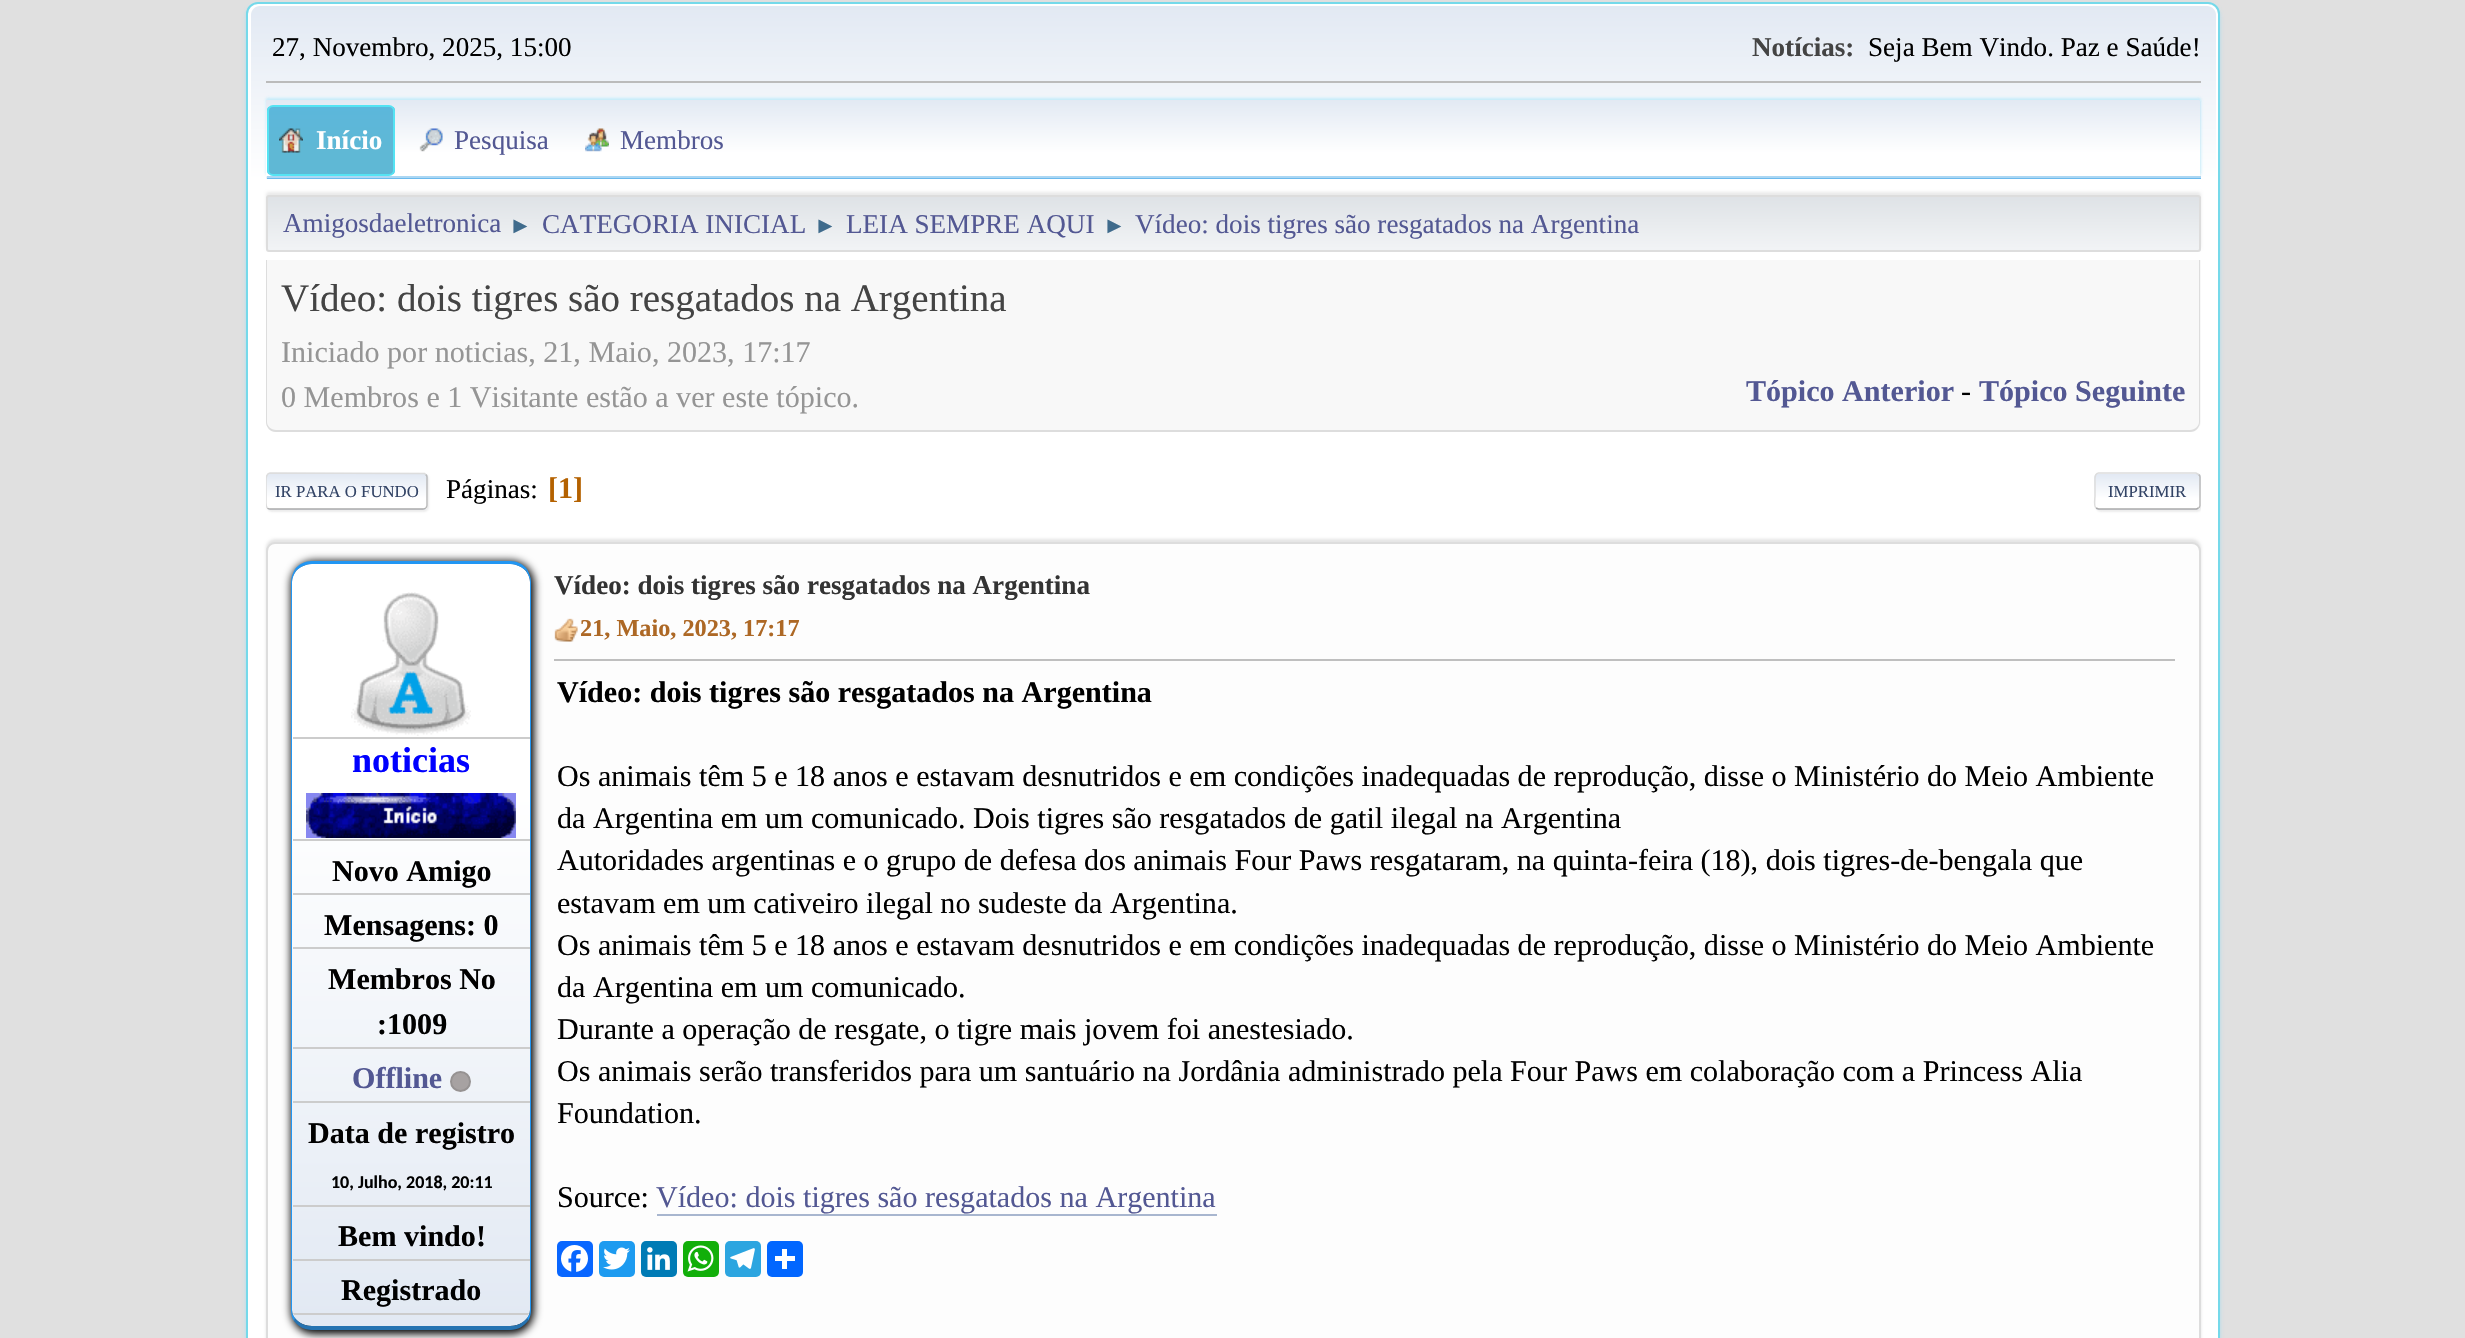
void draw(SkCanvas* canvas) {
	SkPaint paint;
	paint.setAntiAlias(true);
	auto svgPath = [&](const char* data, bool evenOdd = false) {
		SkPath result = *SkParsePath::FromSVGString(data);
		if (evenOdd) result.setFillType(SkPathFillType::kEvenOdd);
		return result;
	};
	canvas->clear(0xffe0e0e0);
	paint.setColor(0xc7a1daf0);
	paint.setMaskFilter(SkMaskFilter::MakeBlur(kNormal_SkBlurStyle, 2));
	canvas->drawRoundRect(SkRect::MakeXYWH(246, 5, 1974, 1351), 12, 12, paint);
	paint.setMaskFilter(nullptr);
	paint.setColor(0xffffffff);
	canvas->drawRoundRect(SkRect::MakeXYWH(247, 3, 1972, 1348), 11, 11, paint);
	paint.setStroke(true);
	paint.setStrokeWidth(2);
	paint.setColor(0xff75d9ea);
	canvas->drawRoundRect(SkRect::MakeXYWH(247, 3, 1972, 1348), 11, 11, paint);
	paint.setStroke(false);
	{
		const SkColor colors[] = {0xffe2e9f3, 0xffffffff};
		const float stops[] = {0, 0.7};
		const SkPoint ends[] = {{1233, 6}, {1233, 255}};
		paint.setShader(SkGradientShader::MakeLinear(ends, colors, stops, 2, SkTileMode::kClamp));
		paint.setAlpha(255);
	}
	canvas->drawPath(svgPath("M260 6H2207C2212 6 2216 10 2216 15V255H251V15C251 10 255 6 260 6Z"), paint);
	paint.setShader(nullptr);
	paint.setColor(0xffbbbbbb);
	canvas->drawRect(SkRect::MakeXYWH(266, 81, 1935, 2), paint);
	SkFont f1(fontMgr->matchFamilyStyle("Liberation Serif", SkFontStyle::Normal()), 27.1);
	f1.setSubpixel(true);
	paint.setColor(0xff000000);
	canvas->drawString("27, Novembro, 2025, 15:00", 272, 56, f1, paint);
	SkFont f2(fontMgr->matchFamilyStyle("Liberation Serif", SkFontStyle::Bold()), 27.1);
	f2.setSubpixel(true);
	paint.setColor(0xff444444);
	canvas->drawString("Notícias:", 1752, 56, f2, paint);
	paint.setColor(0xff000000);
	canvas->drawString("Seja Bem Vindo. Paz e Saúde!", 1868, 56, f1, paint);
	paint.setColor(0x66c1ebf9);
	paint.setMaskFilter(SkMaskFilter::MakeBlur(kNormal_SkBlurStyle, 1.5));
	canvas->drawRoundRect(SkRect::MakeXYWH(266, 98, 1935, 78), 1.5, 1.5, paint);
	paint.setMaskFilter(nullptr);
	{
		const SkColor colors[] = {0xbae2e9f3, 0x69eaf1f2};
		const float stops[] = {0, 0.7};
		const SkPoint ends[] = {{1233, 100}, {1233, 177}};
		paint.setShader(SkGradientShader::MakeLinear(ends, colors, stops, 2, SkTileMode::kClamp));
		paint.setAlpha(255);
	}
	canvas->drawPath(svgPath("M267.5 101H2199.5C2200.5 101 2201 101.5 2201 102.5V177H266V102.5C266 101.5 266.5 101 267.5 101Z"), paint);
	{
		const SkColor colors[] = {0xffeaeff6, 0xfff6f9fa};
		const float stops[] = {0, 0.7};
		const SkPoint ends[] = {{1233, 177}, {1233, 254}};
		paint.setShader(SkGradientShader::MakeLinear(ends, colors, stops, 2, SkTileMode::kClamp));
		paint.setAlpha(255);
	}
	canvas->drawPath(svgPath("M266 177H2201V177.5C2201 178.5 2200.5 179 2199.5 179H267.5C266.5 179 266 178.5 266 177.5Z"), paint);
	paint.setShader(nullptr);
	paint.setColor(0xff6bbaee);
	canvas->drawRect(SkRect::MakeXYWH(267, 178, 1934, 1), paint);
	paint.setColor(0x66a0e3f9);
	paint.setMaskFilter(SkMaskFilter::MakeBlur(kNormal_SkBlurStyle, 1.5));
	canvas->drawRoundRect(SkRect::MakeXYWH(266, 98, 1935, 76), 1.5, 1.5, paint);
	paint.setMaskFilter(nullptr);
	{
		const SkColor colors[] = {0xffe2e9f3, 0xffffffff};
		const float stops[] = {0, 0.7};
		const SkPoint ends[] = {{1233, 100}, {1233, 176}};
		paint.setShader(SkGradientShader::MakeLinear(ends, colors, stops, 2, SkTileMode::kClamp));
		paint.setAlpha(255);
	}
	canvas->drawPath(svgPath("M267 100H2199C2200 100 2200 101 2200 102V176H266V102C266 101 266 100 267 100Z"), paint);
	paint.setShader(nullptr);
	paint.setColor(0xffacd7f3);
	canvas->drawRect(SkRect::MakeXYWH(267, 176, 1934, 2), paint);
	canvas->save();
	canvas->clipPath(svgPath("M273 105H389C392.5 105 395 107.5 395 111V170C395 173.5 392.5 176 389 176H273C269.5 176 267 173.5 267 170V111C267 107.5 269.5 105 273 105Z"), true);
	{
		const SkColor colors[] = {0xff5cb7db, 0xff5fb8d5};
		const float stops[] = {0, 0.7};
		const SkPoint ends[] = {{331, 107}, {331, 174}};
		paint.setShader(SkGradientShader::MakeLinear(ends, colors, stops, 2, SkTileMode::kClamp));
		paint.setAlpha(255);
	}
	canvas->drawRect(SkRect::MakeXYWH(267, 107, 128, 67), paint);
	canvas->restore();
	paint.setStroke(true);
	paint.setShader(nullptr);
	paint.setColor(0xff55e3f3);
	canvas->drawRoundRect(SkRect::MakeXYWH(268, 106, 126, 69), 5, 5, paint);
	canvas->drawImageRect(SkImages::DeferredFromEncodedData(SkData::MakeFromFileName("img1.png")), SkRect::MakeXYWH(279, 128, 24, 25), SkSamplingOptions());
	paint.setStroke(false);
	paint.setColor(0xffffffff);
	canvas->drawString("Início", 316, 149, f2, paint);
	canvas->drawImageRect(SkImages::DeferredFromEncodedData(SkData::MakeFromFileName("img2.png")), SkRect::MakeXYWH(419, 128, 24, 24), SkSamplingOptions());
	paint.setColor(0xff535893);
	canvas->drawString("Pesquisa", 454, 149, f1, paint);
	canvas->drawImageRect(SkImages::DeferredFromEncodedData(SkData::MakeFromFileName("img3.png")), SkRect::MakeXYWH(585, 128, 24, 24), SkSamplingOptions());
	canvas->drawString("Membros", 620, 149, f1, paint);
	paint.setColor(0x14000000);
	paint.setMaskFilter(SkMaskFilter::MakeBlur(kNormal_SkBlurStyle, 1.5));
	canvas->drawRoundRect(SkRect::MakeXYWH(266, 192, 1935, 57), 3, 3, paint);
	paint.setMaskFilter(nullptr);
	canvas->save();
	canvas->clipPath(svgPath("M269 195H2198C2199.5 195 2201 196.5 2201 198V249C2201 250.5 2199.5 252 2198 252H269C267.5 252 266 250.5 266 249V198C266 196.5 267.5 195 269 195Z"), true);
	{
		const SkColor colors[] = {0xffdee2e6, 0xfff1f3f5};
		const float stops[] = {0, 0.95};
		const SkPoint ends[] = {{1233, 196}, {1233, 251}};
		paint.setShader(SkGradientShader::MakeLinear(ends, colors, stops, 2, SkTileMode::kClamp));
		paint.setAlpha(255);
	}
	canvas->drawRect(SkRect::MakeXYWH(266, 197, 1935, 54), paint);
	canvas->restore();
	paint.setStroke(true);
	paint.setShader(nullptr);
	paint.setColor(0xffdddddd);
	canvas->drawRoundRect(SkRect::MakeXYWH(267, 196, 1933, 55), 2, 2, paint);
	paint.setStroke(false);
	paint.setColor(0xff535893);
	canvas->drawString("Amigosdaeletronica", 283, 232, f1, paint);
	SkFont f3(fontMgr->matchFamilyStyle("Liberation Serif", SkFontStyle::Normal()), 23);
	f3.setSubpixel(true);
	paint.setColor(0xff3f6b8c);
	canvas->drawString("►", 509, 233, f3, paint);
	paint.setColor(0xff535893);
	canvas->drawString("CATEGORIA INICIAL", 542, 233, f1, paint);
	paint.setColor(0xff3f6b8c);
	canvas->drawString("►", 814, 233, f3, paint);
	paint.setColor(0xff535893);
	canvas->drawString("LEIA SEMPRE AQUI", 846, 233, f1, paint);
	paint.setColor(0xff3f6b8c);
	canvas->drawString("►", 1103, 233, f3, paint);
	paint.setColor(0xff535893);
	canvas->drawString("Vídeo: dois tigres são resgatados na Argentina", 1135, 233, f1, paint);
	paint.setColor(0xfff8f8f8);
	canvas->drawPath(svgPath("M266 260H2201V421C2201 427 2196 432 2190 432H277C271 432 266 427 266 421Z"), paint);
	paint.setColor(0xffdddddd);
	canvas->drawPath(svgPath("M266 260H2200V422C2200 427 2196 432 2190 432H276C270 432 266 427 266 422ZM267 260H2199V422C2199 426 2195 430 2190 430H276C271 430 267 426 267 422Z", true), paint);
	SkFont f4(fontMgr->matchFamilyStyle("Liberation Serif", SkFontStyle::Normal()), 39);
	f4.setSubpixel(true);
	paint.setColor(0xff444444);
	canvas->drawString("Vídeo: dois tigres são resgatados na Argentina", 281, 311, f4, paint);
	SkFont f5(fontMgr->matchFamilyStyle("Liberation Serif", SkFontStyle::Normal()), 30.08);
	f5.setSubpixel(true);
	paint.setColor(0xff959595);
	canvas->drawString("Iniciado por noticias, 21, Maio, 2023, 17:17", 281, 362, f5, paint);
	canvas->drawString("0 Membros e 1 Visitante estão a ver este tópico.", 281, 407, f5, paint);
	SkFont f6(fontMgr->matchFamilyStyle("Liberation Serif", SkFontStyle::Bold()), 30.08);
	f6.setSubpixel(true);
	paint.setColor(0xff535893);
	canvas->drawString("Tópico Anterior", 1746, 401, f6, paint);
	paint.setColor(0xff000000);
	canvas->drawString("-", 1961, 401, f5, paint);
	paint.setColor(0xff535893);
	canvas->drawString("Tópico Seguinte", 1979, 401, f6, paint);
	paint.setColor(0x91dddddd);
	paint.setMaskFilter(SkMaskFilter::MakeBlur(kNormal_SkBlurStyle, 1));
	canvas->drawRoundRect(SkRect::MakeXYWH(267, 474, 162, 38), 5, 5, paint);
	paint.setMaskFilter(nullptr);
	canvas->save();
	canvas->clipPath(svgPath("M271 473H423C426 473 428 475 428 478V505C428 508 426 510 423 510H271C268 510 266 508 266 505V478C266 475 268 473 271 473Z"), true);
	{
		const SkColor colors[] = {0xffe2e9f3, 0xffffffff};
		const float stops[] = {0, 0.7};
		const SkPoint ends[] = {{347, 474}, {347, 509}};
		paint.setShader(SkGradientShader::MakeLinear(ends, colors, stops, 2, SkTileMode::kClamp));
		paint.setAlpha(255);
	}
	canvas->drawRect(SkRect::MakeXYWH(266, 474, 162, 35), paint);
	{
		const SkColor colors[] = {0xffe2e9f3, 0xffffffff};
		const float stops[] = {0, 0.7};
		const SkPoint ends[] = {{347, 509}, {347, 543}};
		paint.setShader(SkGradientShader::MakeLinear(ends, colors, stops, 2, SkTileMode::kClamp));
		paint.setAlpha(255);
	}
	canvas->drawRect(SkRect::MakeXYWH(266, 509, 162, 1), paint);
	canvas->restore();
	paint.setStroke(true);
	paint.setStrokeWidth(1.5);
	paint.setShader(nullptr);
	paint.setColor(0xffbbbbbb);
	canvas->drawPath(svgPath("M425.5 474.5C426.5 475 427 476 427 477V505.5C427 506.5 426.5 507.5 425.5 508"), paint);
	paint.setColor(0xffaaaaaa);
	canvas->drawPath(svgPath("M425.5 508C425 509 424 509 423 509H270C269 509 268 509 267.5 508"), paint);
	canvas->save();
	canvas->clipRect(SkRect::MakeXYWH(266, 455, 1935, 69));
	paint.setColor(0xffdddddd);
	canvas->drawPath(svgPath("M267.5 508C265.5 506.5 266 503 266 501V482C266 479 265.5 473.5 270 473L424.5 473.5L425.5 474.5"), paint);
	canvas->restore();
	SkFont f7(fontMgr->matchFamilyStyle("Liberation Serif", SkFontStyle::Normal()), 16.75);
	f7.setSubpixel(true);
	paint.setStroke(false);
	paint.setColor(0xff334466);
	canvas->drawString("IR PARA O FUNDO", 275, 497, f7, paint);
	paint.setColor(0xff000000);
	canvas->drawString("Páginas:", 446, 498, f1, paint);
	paint.setColor(0xffb46100);
	canvas->drawString("[1]", 548, 498, f6, paint);
	canvas->save();
	canvas->clipRect(SkRect::MakeXYWH(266, 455, 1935, 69));
	paint.setColor(0x91dddddd);
	paint.setMaskFilter(SkMaskFilter::MakeBlur(kNormal_SkBlurStyle, 1));
	canvas->drawRoundRect(SkRect::MakeXYWH(2096, 474, 106, 38), 5, 5, paint);
	paint.setMaskFilter(nullptr);
	canvas->restore();
	canvas->save();
	canvas->clipPath(svgPath("M2099 473H2196C2199 473 2201 475 2201 478V505C2201 508 2199 510 2196 510H2099C2096 510 2094 508 2094 505V478C2094 475 2096 473 2099 473Z"), true);
	{
		const SkColor colors[] = {0xffe2e9f3, 0xffffffff};
		const float stops[] = {0, 0.7};
		const SkPoint ends[] = {{2147, 474}, {2147, 509}};
		paint.setShader(SkGradientShader::MakeLinear(ends, colors, stops, 2, SkTileMode::kClamp));
		paint.setAlpha(255);
	}
	canvas->drawRect(SkRect::MakeXYWH(2094, 474, 107, 35), paint);
	{
		const SkColor colors[] = {0xffe2e9f3, 0xffffffff};
		const float stops[] = {0, 0.7};
		const SkPoint ends[] = {{2147, 509}, {2147, 543}};
		paint.setShader(SkGradientShader::MakeLinear(ends, colors, stops, 2, SkTileMode::kClamp));
		paint.setAlpha(255);
	}
	canvas->drawRect(SkRect::MakeXYWH(2094, 509, 107, 1), paint);
	canvas->restore();
	paint.setStroke(true);
	paint.setShader(nullptr);
	paint.setColor(0xffbbbbbb);
	canvas->drawPath(svgPath("M2198.5 474.5C2199.5 475 2200 476 2200 477V505.5C2200 506.5 2199.5 507.5 2198.5 508"), paint);
	paint.setColor(0xffaaaaaa);
	canvas->drawPath(svgPath("M2198.5 508L2196.5 509H2115H2098.5L2096 508"), paint);
	paint.setColor(0xffdddddd);
	canvas->drawPath(svgPath("M2096 508C2093.5 506 2095 498.5 2095 496V482C2095 479 2094 473.5 2098.5 473H2196L2198.5 474.5"), paint);
	paint.setStroke(false);
	paint.setColor(0xff334466);
	canvas->drawString("IMPRIMIR", 2108, 497, f7, paint);
	paint.setColor(0x1a000000);
	paint.setMaskFilter(SkMaskFilter::MakeBlur(kNormal_SkBlurStyle, 1.5));
	canvas->drawRoundRect(SkRect::MakeXYWH(266, 539, 1935, 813), 9, 9, paint);
	paint.setMaskFilter(nullptr);
	paint.setColor(0xfffdfdfd);
	canvas->drawRoundRect(SkRect::MakeXYWH(267, 543, 1933, 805), 8, 8, paint);
	paint.setStroke(true);
	paint.setStrokeWidth(2);
	paint.setColor(0xffdddddd);
	canvas->drawRoundRect(SkRect::MakeXYWH(267, 543, 1933, 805), 8, 8, paint);
	paint.setStroke(false);
	paint.setColor(0xff000000);
	paint.setMaskFilter(SkMaskFilter::MakeBlur(kNormal_SkBlurStyle, 4));
	canvas->drawRoundRect(SkRect::MakeXYWH(291, 561, 243, 773), 23, 23, paint);
	paint.setMaskFilter(nullptr);
	{
		const SkColor colors[] = {0xffe2e9f3, 0xffffffff};
		const float stops[] = {0.01, 0.7};
		const SkPoint ends[] = {{411, 1326}, {411, 564}};
		paint.setShader(SkGradientShader::MakeLinear(ends, colors, stops, 2, SkTileMode::kClamp));
		paint.setAlpha(255);
	}
	canvas->drawPath(svgPath("M312 564H510C521 564 530 572 530 582V1310C530 1319 521 1326 510 1326H312C301 1326 292 1319 292 1310V582C292 572 301 564 312 564Z"), paint);
	paint.setShader(nullptr);
	paint.setColor(0xff2196f3);
	canvas->drawPath(svgPath("M312 561C305 561 299 564 295 569L296 571C300 567 306 564 312 564H510C516 564 522 567 526 571L527 569C523 564 517 561 510 561Z"), paint);
	canvas->drawPath(svgPath("M531 1310V582C531 577 529 573 527 569L526 571C528 574 530 578 530 582V1310C530 1313 529 1316 527 1318L528 1321C530 1318 531 1314 531 1310Z"), paint);
	paint.setColor(0xff2573b1);
	canvas->drawPath(svgPath("M528 1321C524 1326 518 1330 510 1330H312C304 1330 298 1326 294 1321L295 1318C299 1323 305 1326 312 1326H510C517 1326 523 1323 527 1318Z"), paint);
	paint.setColor(0xff2196f3);
	canvas->drawPath(svgPath("M291 582V1310C291 1314 292 1318 294 1321L295 1318C293 1316 292 1313 292 1310V582C292 578 294 574 296 571L295 569C293 573 291 577 291 582Z"), paint);
	paint.setColor(0xffcccccc);
	canvas->drawRect(SkRect::MakeXYWH(293, 737, 237, 2), paint);
	canvas->drawImageRect(SkImages::DeferredFromEncodedData(SkData::MakeFromFileName("img4.png")), SkRect::MakeXYWH(351, 592, 120, 144), SkSamplingOptions());
	SkFont f8(fontMgr->matchFamilyStyle("Liberation Serif", SkFontStyle::Bold()), 36);
	f8.setSubpixel(true);
	paint.setColor(0xff0000ff);
	canvas->drawString("noticias", 352, 772, f8, paint);
	paint.setColor(0xffcccccc);
	canvas->drawRect(SkRect::MakeXYWH(293, 839, 237, 2), paint);
	canvas->drawImageRect(SkImages::DeferredFromEncodedData(SkData::MakeFromFileName("img5.png")), SkRect::MakeXYWH(306, 793, 210, 45), SkSamplingOptions());
	canvas->drawRect(SkRect::MakeXYWH(293, 893, 237, 2), paint);
	paint.setColor(0xff000000);
	canvas->drawString("Novo Amigo", 332, 881, f6, paint);
	paint.setColor(0xffcccccc);
	canvas->drawRect(SkRect::MakeXYWH(293, 947, 237, 2), paint);
	paint.setColor(0xff000000);
	canvas->drawString("Mensagens: 0", 324, 935, f6, paint);
	paint.setColor(0xffcccccc);
	canvas->drawRect(SkRect::MakeXYWH(293, 1047, 237, 2), paint);
	paint.setColor(0xff000000);
	canvas->drawString("Membros No", 328, 989, f6, paint);
	canvas->drawString(":1009", 377, 1034, f6, paint);
	paint.setColor(0xffcccccc);
	canvas->drawRect(SkRect::MakeXYWH(293, 1101, 237, 2), paint);
	paint.setColor(0xff535893);
	canvas->drawString("Offline", 352, 1088, f6, paint);
	paint.setColor(0xffa7a2a2);
	canvas->drawCircle(460.5, 1081.5, 9.5, paint);
	paint.setStroke(true);
	paint.setColor(0xff969292);
	canvas->drawCircle(460.5, 1081.5, 9.5, paint);
	paint.setStroke(false);
	paint.setColor(0xffcccccc);
	canvas->drawRect(SkRect::MakeXYWH(293, 1205, 237, 2), paint);
	paint.setColor(0xff000000);
	canvas->drawString("Data de registro", 308, 1143, f6, paint);
	SkFont f9(fontMgr->matchFamilyStyle("Carlito", SkFontStyle::Bold()), 18);
	f9.setSubpixel(true);
	canvas->drawString("10, Julho, 2018, 20:11", 331, 1188, f9, paint);
	paint.setColor(0xffcccccc);
	canvas->drawRect(SkRect::MakeXYWH(293, 1259, 237, 2), paint);
	paint.setColor(0xff000000);
	canvas->drawString("Bem vindo!", 338, 1246, f6, paint);
	paint.setColor(0xffcccccc);
	canvas->drawPath(svgPath("M293 1313H529L528 1315H294Z"), paint);
	paint.setColor(0xff000000);
	canvas->drawString("Registrado", 341, 1300, f6, paint);
	paint.setColor(0xff333333);
	canvas->drawString("Vídeo: dois tigres são resgatados na Argentina", 554, 594, f2, paint);
	canvas->drawImageRect(SkImages::DeferredFromEncodedData(SkData::MakeFromFileName("img6.png")), SkRect::MakeXYWH(554, 618, 24, 24), SkSamplingOptions());
	SkFont f10(fontMgr->matchFamilyStyle("Liberation Serif", SkFontStyle::Bold()), 24.25);
	f10.setSubpixel(true);
	paint.setColor(0xffad6825);
	canvas->drawString("21, Maio, 2023, 17:17", 580, 636, f10, paint);
	paint.setColor(0xffbfbfbf);
	canvas->drawRect(SkRect::MakeXYWH(554, 659, 1621, 2), paint);
	paint.setColor(0xff000000);
	canvas->drawString("Vídeo: dois tigres são resgatados na Argentina", 557, 702, f6, paint);
	canvas->drawString("Os animais têm 5 e 18 anos e estavam desnutridos e em condições inadequadas de reprodução, disse o Ministério do Meio Ambiente", 557, 786, f5, paint);
	canvas->drawString("da Argentina em um comunicado. Dois tigres são resgatados de gatil ilegal na Argentina", 557, 828, f5, paint);
	canvas->drawString("Autoridades argentinas e o grupo de defesa dos animais Four Paws resgataram, na quinta-feira (18), dois tigres-de-bengala que", 557, 870, f5, paint);
	canvas->drawString("estavam em um cativeiro ilegal no sudeste da Argentina.", 557, 913, f5, paint);
	canvas->drawString("Os animais têm 5 e 18 anos e estavam desnutridos e em condições inadequadas de reprodução, disse o Ministério do Meio Ambiente", 557, 955, f5, paint);
	canvas->drawString("da Argentina em um comunicado.", 557, 997, f5, paint);
	canvas->drawString("Durante a operação de resgate, o tigre mais jovem foi anestesiado.", 557, 1039, f5, paint);
	canvas->drawString("Os animais serão transferidos para um santuário na Jordânia administrado pela Four Paws em colaboração com a Princess Alia", 557, 1081, f5, paint);
	canvas->drawString("Foundation.", 557, 1123, f5, paint);
	canvas->drawString("Source:", 557, 1207, f5, paint);
	paint.setColor(0xff535893);
	canvas->drawString("Vídeo: dois tigres são resgatados na Argentina", 656, 1207, f5, paint);
	paint.setColor(0xffa8b6cf);
	canvas->drawRect(SkRect::MakeXYWH(657, 1214, 560, 2), paint);
	paint.setColor(0xff0866ff);
	canvas->drawRoundRect(SkRect::MakeXYWH(557, 1241, 36, 36), 5, 5, paint);
	canvas->drawImageRect(SkImages::DeferredFromEncodedData(SkData::MakeFromFileName("img7.png")), SkRect::MakeXYWH(561, 1245, 27, 27), SkSamplingOptions());
	paint.setColor(0xff1d9bf0);
	canvas->drawRoundRect(SkRect::MakeXYWH(599, 1241, 36, 36), 5, 5, paint);
	canvas->drawImageRect(SkImages::DeferredFromEncodedData(SkData::MakeFromFileName("img8.png")), SkRect::MakeXYWH(603, 1247, 27, 23), SkSamplingOptions());
	paint.setColor(0xff007bb5);
	canvas->drawRoundRect(SkRect::MakeXYWH(641, 1241, 36, 36), 5, 5, paint);
	canvas->drawImageRect(SkImages::DeferredFromEncodedData(SkData::MakeFromFileName("img9.png")), SkRect::MakeXYWH(647, 1247, 23, 23), SkSamplingOptions());
	paint.setColor(0xff12af0a);
	canvas->drawRoundRect(SkRect::MakeXYWH(683, 1241, 36, 36), 5, 5, paint);
	canvas->drawImageRect(SkImages::DeferredFromEncodedData(SkData::MakeFromFileName("img10.png")), SkRect::MakeXYWH(687, 1245, 27, 27), SkSamplingOptions());
	paint.setColor(0xff2ca5e0);
	canvas->drawRoundRect(SkRect::MakeXYWH(725, 1241, 36, 36), 5, 5, paint);
	canvas->drawImageRect(SkImages::DeferredFromEncodedData(SkData::MakeFromFileName("img11.png")), SkRect::MakeXYWH(730, 1248, 25, 21), SkSamplingOptions());
	paint.setColor(0xff0166ff);
	canvas->drawRoundRect(SkRect::MakeXYWH(767, 1241, 36, 36), 5, 5, paint);
	paint.setColor(0xffffffff);
	canvas->drawRect(SkRect::MakeXYWH(782, 1249, 5, 20), paint);
	canvas->drawRect(SkRect::MakeXYWH(775, 1256, 20, 5), paint);
}
